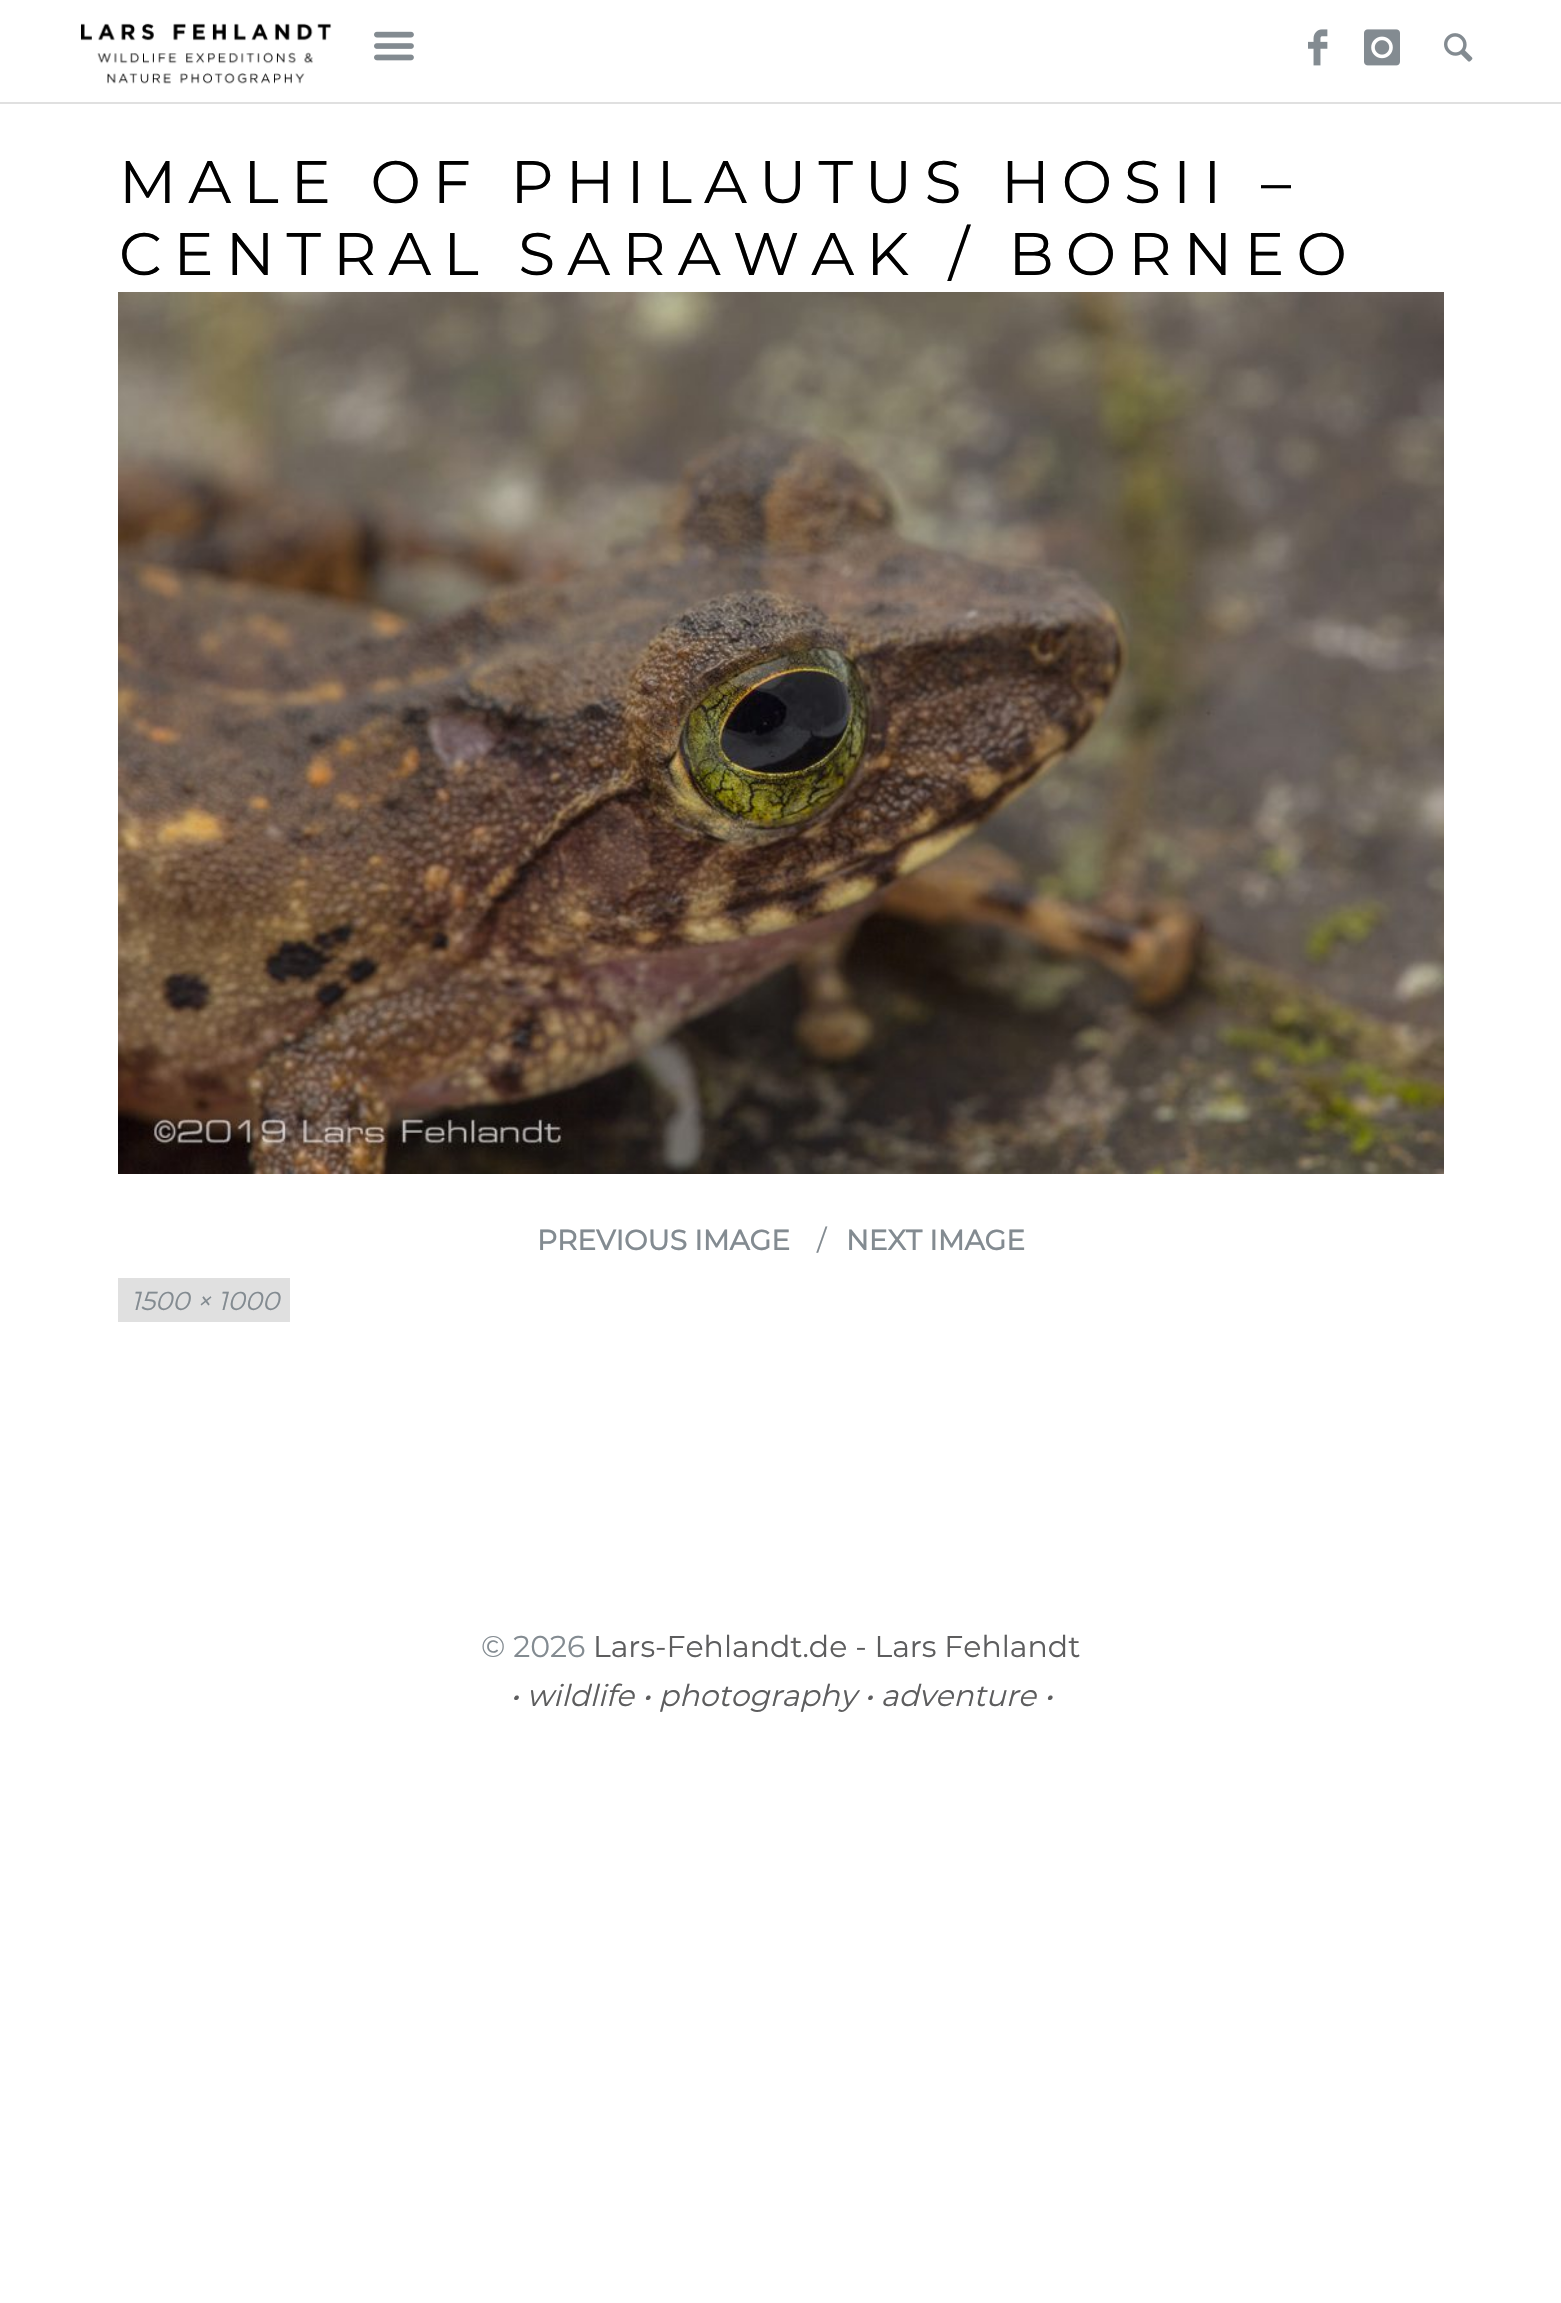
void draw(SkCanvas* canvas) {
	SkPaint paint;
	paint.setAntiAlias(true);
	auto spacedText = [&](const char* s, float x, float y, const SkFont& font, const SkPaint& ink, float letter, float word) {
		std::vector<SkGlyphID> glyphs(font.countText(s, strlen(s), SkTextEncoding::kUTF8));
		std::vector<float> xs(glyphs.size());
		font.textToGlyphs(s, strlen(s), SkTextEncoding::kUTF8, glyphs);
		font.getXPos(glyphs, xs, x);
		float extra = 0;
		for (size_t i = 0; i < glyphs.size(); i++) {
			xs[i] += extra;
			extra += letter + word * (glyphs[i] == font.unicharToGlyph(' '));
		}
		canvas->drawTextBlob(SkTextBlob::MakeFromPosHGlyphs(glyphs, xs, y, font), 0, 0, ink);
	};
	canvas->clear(0xffffffff);
	paint.setColor(0xffe0e0e0);
	canvas->drawRect(SkRect::MakeXYWH(0, 102, 1561, 2), paint);
	canvas->drawImageRect(SkImages::DeferredFromEncodedData(SkData::MakeFromFileName("img1.png")), SkRect::MakeXYWH(81, 23, 251, 61), SkSamplingOptions());
	canvas->drawImageRect(SkImages::DeferredFromEncodedData(SkData::MakeFromFileName("img2.png")), SkRect::MakeXYWH(374, 31, 40, 30), SkSamplingOptions());
	canvas->drawImageRect(SkImages::DeferredFromEncodedData(SkData::MakeFromFileName("img3.png")), SkRect::MakeXYWH(1308, 29, 20, 37), SkSamplingOptions());
	canvas->drawImageRect(SkImages::DeferredFromEncodedData(SkData::MakeFromFileName("img4.png")), SkRect::MakeXYWH(1364, 29, 36, 37), SkSamplingOptions());
	canvas->drawImageRect(SkImages::DeferredFromEncodedData(SkData::MakeFromFileName("img5.png")), SkRect::MakeXYWH(1444, 33, 29, 29), SkSamplingOptions());
	SkFont f1(fontMgr->matchFamilyStyle("Montserrat", SkFontStyle(100, SkFontStyle::kNormal_Width, SkFontStyle::kUpright_Slant)), 60);
	f1.setSubpixel(true);
	paint.setColor(0xff000000);
	spacedText("MALE OF PHILAUTUS HOSII –", 119, 203, f1, paint, 12, 0);
	spacedText("CENTRAL SARAWAK / BORNEO", 119, 275, f1, paint, 12, 0);
	canvas->drawImageRect(SkImages::DeferredFromEncodedData(SkData::MakeFromFileName("img6.png")), SkRect::MakeXYWH(118, 292, 1326, 882), SkSamplingOptions());
	SkFont f2(fontMgr->matchFamilyStyle("Montserrat", SkFontStyle::Bold()), 28);
	f2.setSubpixel(true);
	paint.setColor(0xff838b91);
	canvas->drawString("PREVIOUS IMAGE", 537, 1250, f2, paint);
	SkFont f3(fontMgr->matchFamilyStyle("Montserrat", SkFontStyle(100, SkFontStyle::kNormal_Width, SkFontStyle::kUpright_Slant)), 28);
	f3.setSubpixel(true);
	canvas->drawString("∕", 817, 1250, f3, paint);
	canvas->drawString("NEXT IMAGE", 846, 1250, f2, paint);
	paint.setColor(0xffe0e0e0);
	canvas->drawRect(SkRect::MakeXYWH(118, 1278, 172, 44), paint);
	SkFont f4(fontMgr->matchFamilyStyle("Montserrat", SkFontStyle(100, SkFontStyle::kNormal_Width, SkFontStyle::kItalic_Slant)), 26);
	f4.setSubpixel(true);
	paint.setColor(0xff838b91);
	canvas->drawString("1500 × 1000", 131, 1310, f4, paint);
	SkFont f5(fontMgr->matchFamilyStyle("Montserrat", SkFontStyle(100, SkFontStyle::kNormal_Width, SkFontStyle::kUpright_Slant)), 30);
	f5.setSubpixel(true);
	canvas->drawString("© 2026", 481, 1657, f5, paint);
	paint.setColor(0xff5d5d5e);
	canvas->drawString("Lars-Fehlandt.de - Lars Fehlandt", 593, 1657, f5, paint);
	SkFont f6(fontMgr->matchFamilyStyle("Montserrat", SkFontStyle(100, SkFontStyle::kNormal_Width, SkFontStyle::kItalic_Slant)), 30);
	f6.setSubpixel(true);
	canvas->drawString("• wildlife • photography • adventure •", 510, 1706, f6, paint);
}
